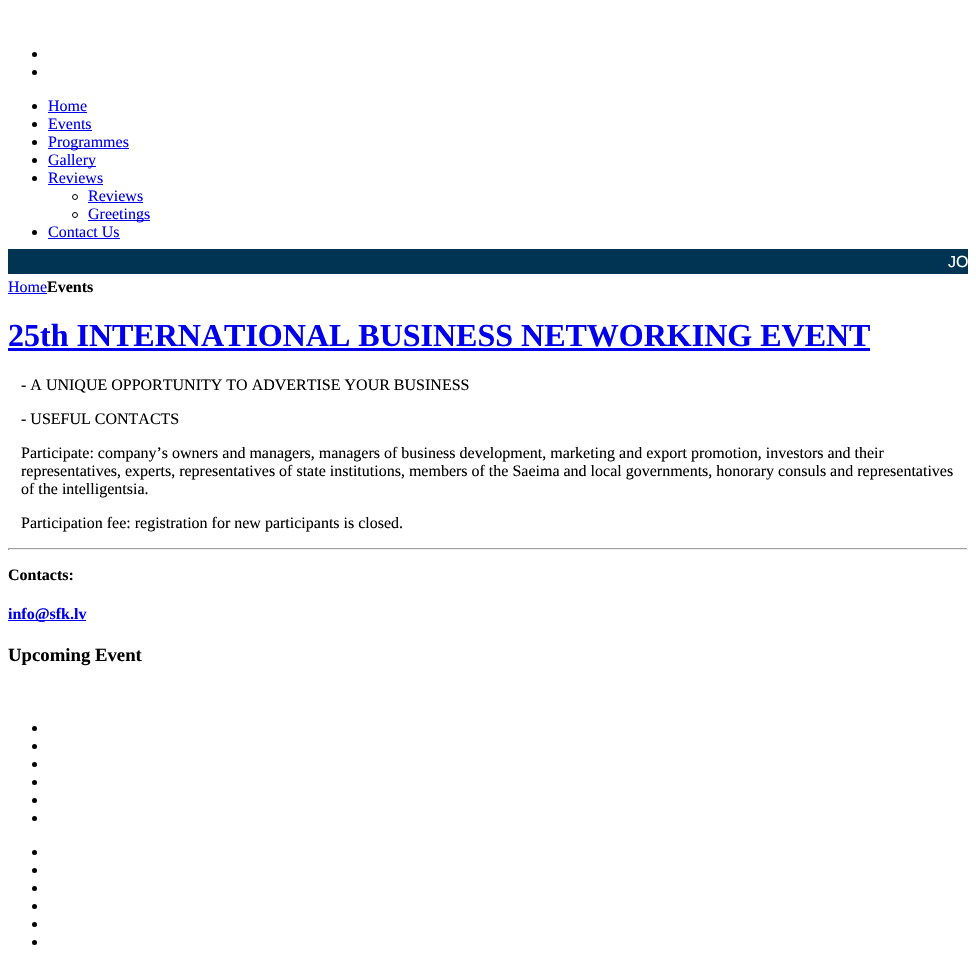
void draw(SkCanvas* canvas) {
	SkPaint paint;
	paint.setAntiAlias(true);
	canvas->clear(0xffffffff);
	paint.setColor(0xff000000);
	canvas->drawCircle(34.5, 54.5, 2.5, paint);
	canvas->drawCircle(34.5, 72.5, 2.5, paint);
	canvas->drawCircle(34.5, 106.5, 2.5, paint);
	SkFont f1(fontMgr->matchFamilyStyle("Liberation Serif", SkFontStyle::Normal()), 16);
	f1.setSubpixel(true);
	paint.setColor(0xff0000ee);
	canvas->drawString("Home", 48, 111, f1, paint);
	canvas->drawRect(SkRect::MakeXYWH(48, 112, 39, 1), paint);
	paint.setColor(0xff000000);
	canvas->drawCircle(34.5, 124.5, 2.5, paint);
	paint.setColor(0xff0000ee);
	canvas->drawString("Events", 48, 129, f1, paint);
	canvas->drawRect(SkRect::MakeXYWH(48, 130, 44, 1), paint);
	paint.setColor(0xff000000);
	canvas->drawCircle(34.5, 142.5, 2.5, paint);
	paint.setColor(0xff0000ee);
	canvas->drawRect(SkRect::MakeXYWH(48, 148, 81, 1), paint);
	canvas->drawString("Programmes", 48, 147, f1, paint);
	paint.setColor(0xff000000);
	canvas->drawCircle(34.5, 160.5, 2.5, paint);
	paint.setColor(0xff0000ee);
	canvas->drawRect(SkRect::MakeXYWH(48, 166, 48, 1), paint);
	canvas->drawString("Gallery", 48, 165, f1, paint);
	paint.setColor(0xff000000);
	canvas->drawCircle(34.5, 178.5, 2.5, paint);
	paint.setColor(0xff0000ee);
	canvas->drawString("Reviews", 48, 183, f1, paint);
	canvas->drawRect(SkRect::MakeXYWH(48, 184, 55, 1), paint);
	paint.setStroke(true);
	paint.setStrokeWidth(1);
	paint.setColor(0xff000000);
	canvas->drawCircle(75, 197, 2.5, paint);
	paint.setStroke(false);
	paint.setColor(0xff0000ee);
	canvas->drawString("Reviews", 88, 201, f1, paint);
	canvas->drawRect(SkRect::MakeXYWH(88, 202, 55, 1), paint);
	paint.setStroke(true);
	paint.setColor(0xff000000);
	canvas->drawCircle(75, 215, 2.5, paint);
	paint.setStroke(false);
	paint.setColor(0xff0000ee);
	canvas->drawRect(SkRect::MakeXYWH(88, 220, 62, 1), paint);
	canvas->drawString("Greetings", 88, 219, f1, paint);
	paint.setColor(0xff000000);
	canvas->drawCircle(34.5, 232.5, 2.5, paint);
	paint.setColor(0xff0000ee);
	canvas->drawString("Contact Us", 48, 237, f1, paint);
	canvas->drawRect(SkRect::MakeXYWH(48, 238, 72, 1), paint);
	paint.setColor(0xff003452);
	canvas->drawRect(SkRect::MakeXYWH(8, 249, 960, 25), paint);
	SkFont f2(fontMgr->matchFamilyStyle("Liberation Sans", SkFontStyle::Normal()), 16);
	f2.setSubpixel(true);
	paint.setColor(0xffffffff);
	canvas->drawString("JO", 948, 267, f2, paint);
	paint.setColor(0xff0000ee);
	canvas->drawString("Home", 8, 292, f1, paint);
	canvas->drawRect(SkRect::MakeXYWH(8, 293, 39, 1), paint);
	SkFont f3(fontMgr->matchFamilyStyle("Liberation Serif", SkFontStyle::Bold()), 16);
	f3.setSubpixel(true);
	paint.setColor(0xff000000);
	canvas->drawString("Events", 47, 292, f3, paint);
	SkFont f4(fontMgr->matchFamilyStyle("Liberation Serif", SkFontStyle::Bold()), 32);
	f4.setSubpixel(true);
	paint.setColor(0xff0000ee);
	canvas->drawString("25th INTERNATIONAL BUSINESS NETWORKING EVENT", 8, 346, f4, paint);
	canvas->drawRect(SkRect::MakeXYWH(8, 348, 862, 3), paint);
	paint.setColor(0xff000000);
	canvas->drawString("- A UNIQUE OPPORTUNITY TO ADVERTISE YOUR BUSINESS", 21, 390, f1, paint);
	canvas->drawString("- USEFUL CONTACTS", 21, 424, f1, paint);
	canvas->drawString("Participate: company’s owners and managers, managers of business development, marketing and export promotion, investors and their", 21, 458, f1, paint);
	canvas->drawString("representatives, experts, representatives of state institutions, members of the Saeima and local governments, honorary consuls and representatives", 21, 476, f1, paint);
	canvas->drawString("of the intelligentsia.", 21, 494, f1, paint);
	canvas->drawString("Participation fee: registration for new participants is closed.", 21, 528, f1, paint);
	paint.setColor(0xff9f9f9f);
	canvas->drawRect(SkRect::MakeXYWH(8, 548, 960, 1), paint);
	paint.setColor(0xffeeeeee);
	canvas->drawRect(SkRect::MakeXYWH(967, 548, 1, 2), paint);
	canvas->drawRect(SkRect::MakeXYWH(8, 549, 960, 1), paint);
	paint.setColor(0xff9f9f9f);
	canvas->drawRect(SkRect::MakeXYWH(8, 548, 1, 2), paint);
	paint.setColor(0xff000000);
	canvas->drawString("Contacts:", 8, 580, f3, paint);
	paint.setColor(0xff0000ee);
	canvas->drawRect(SkRect::MakeXYWH(8, 620, 78, 1), paint);
	canvas->drawString("info@sfk.lv", 8, 619, f3, paint);
	SkFont f5(fontMgr->matchFamilyStyle("Liberation Serif", SkFontStyle::Bold()), 18.75);
	f5.setSubpixel(true);
	paint.setColor(0xff000000);
	canvas->drawString("Upcoming Event", 8, 661, f5, paint);
	canvas->drawCircle(34.5, 728.5, 2.5, paint);
	canvas->drawCircle(34.5, 746.5, 2.5, paint);
	canvas->drawCircle(34.5, 764.5, 2.5, paint);
	canvas->drawCircle(34.5, 782.5, 2.5, paint);
	canvas->drawCircle(34.5, 800.5, 2.5, paint);
	canvas->drawCircle(34.5, 818.5, 2.5, paint);
	canvas->drawCircle(34.5, 852.5, 2.5, paint);
	canvas->drawCircle(34.5, 870.5, 2.5, paint);
	canvas->drawCircle(34.5, 888.5, 2.5, paint);
	canvas->drawCircle(34.5, 906.5, 2.5, paint);
	canvas->drawCircle(34.5, 924.5, 2.5, paint);
	canvas->drawCircle(34.5, 942.5, 2.5, paint);
}
